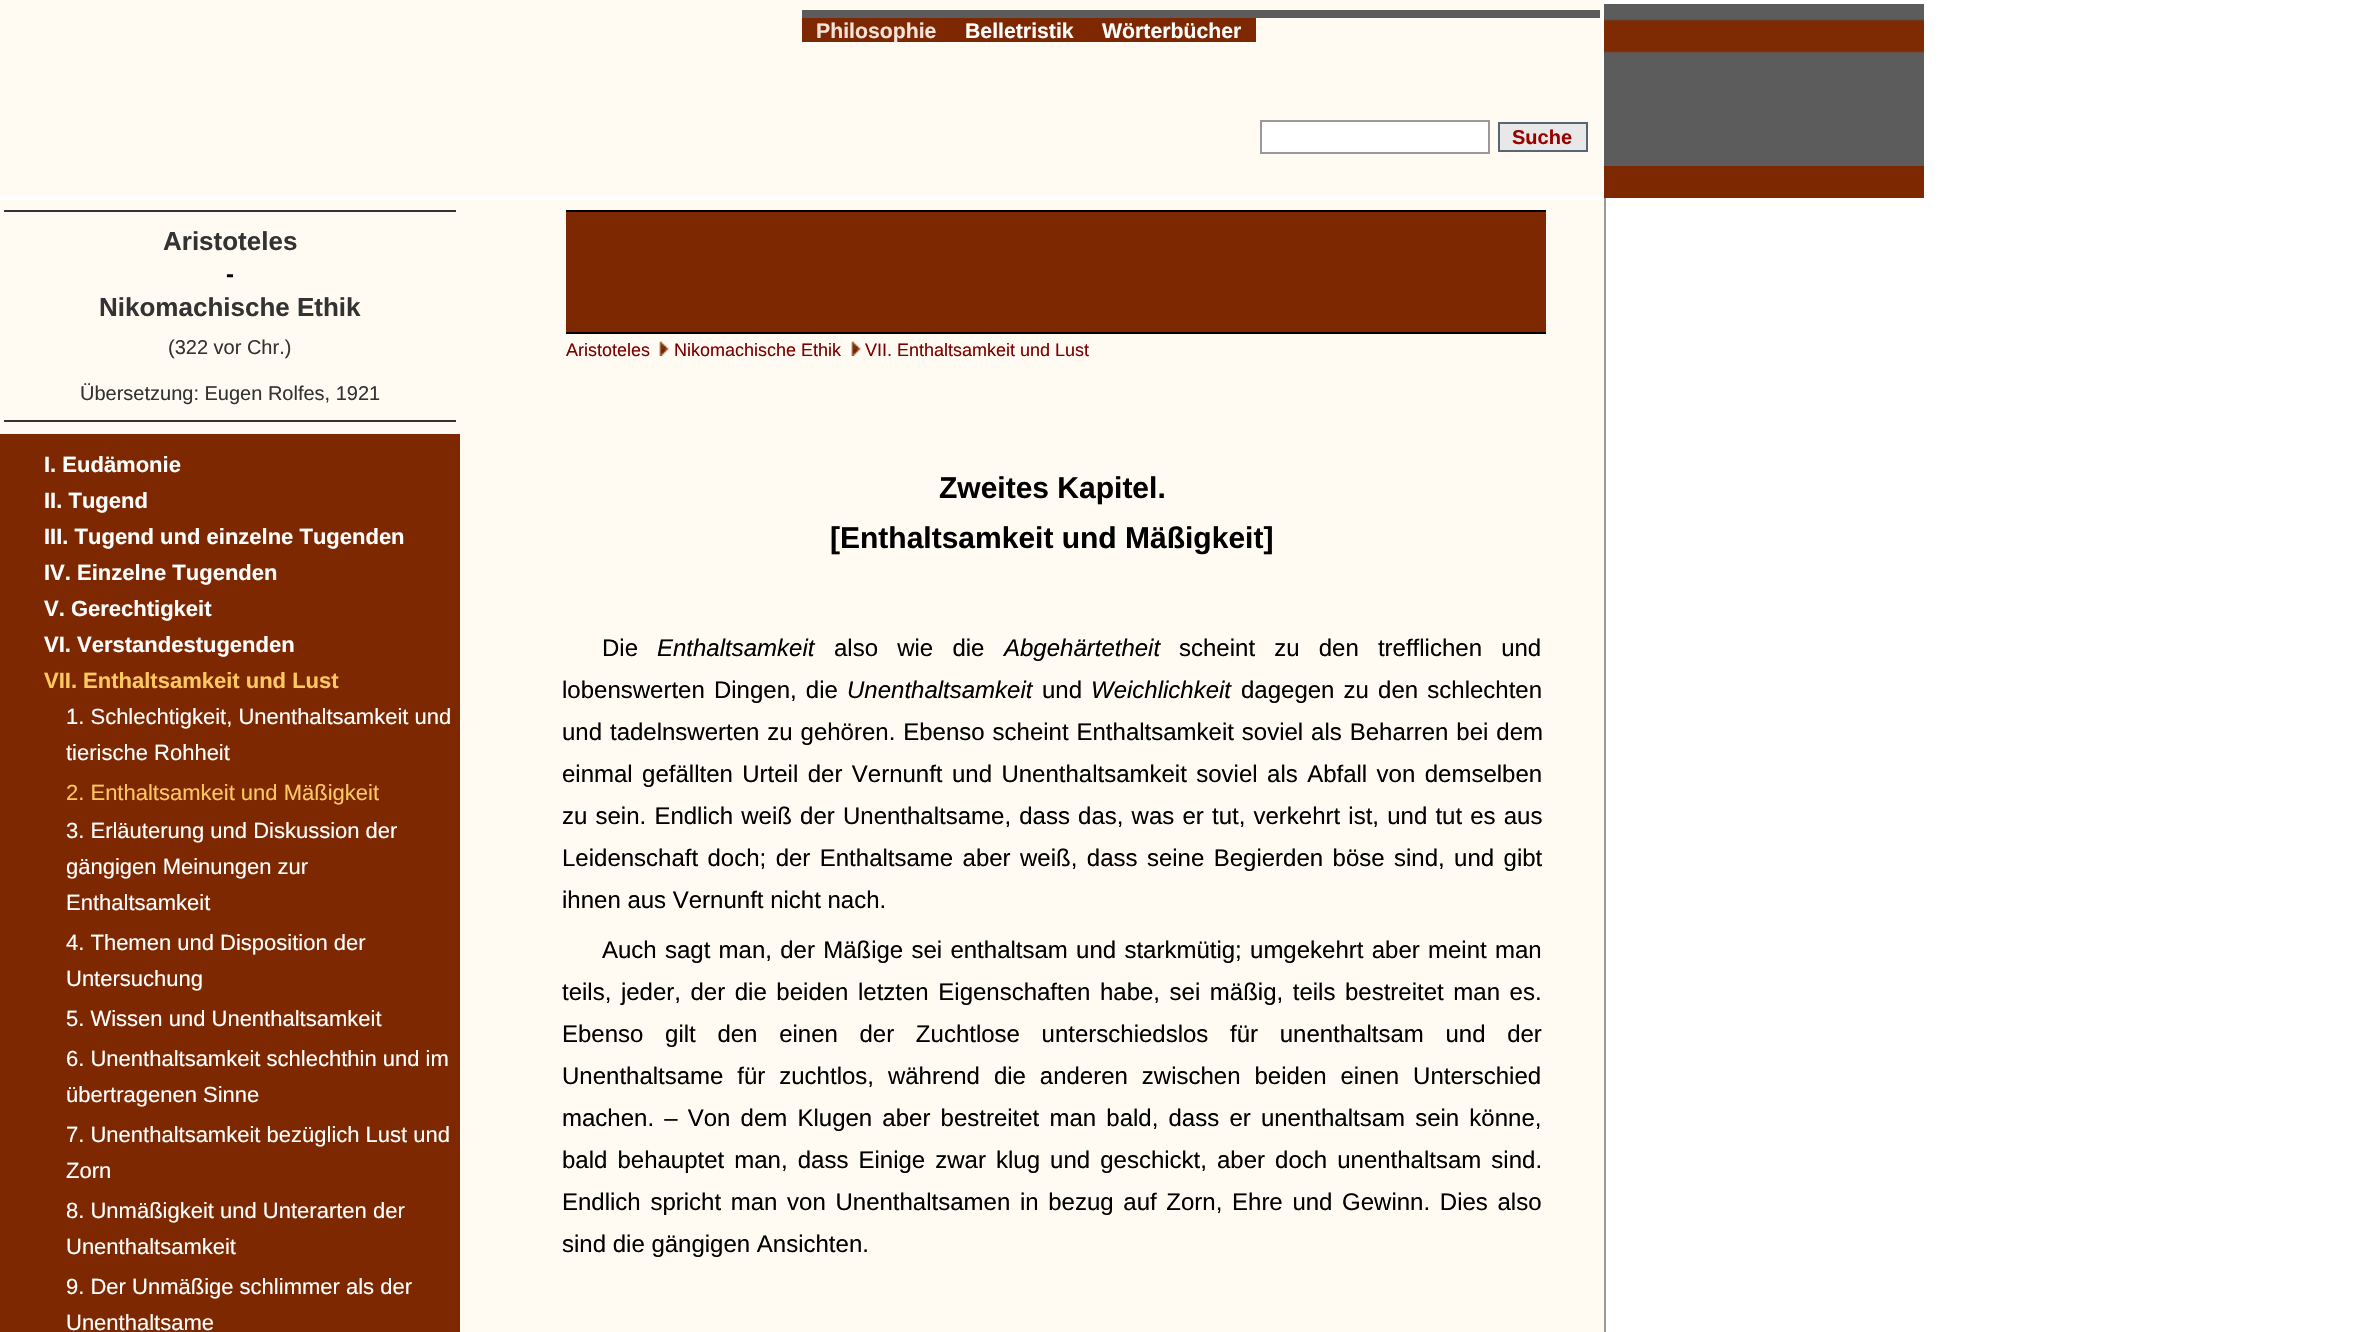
void draw(SkCanvas* canvas) {
	SkPaint paint;
	paint.setAntiAlias(true);
	auto spacedText = [&](const char* s, float x, float y, const SkFont& font, const SkPaint& ink, float letter, float word) {
		std::vector<SkGlyphID> glyphs(font.countText(s, strlen(s), SkTextEncoding::kUTF8));
		std::vector<float> xs(glyphs.size());
		font.textToGlyphs(s, strlen(s), SkTextEncoding::kUTF8, glyphs);
		font.getXPos(glyphs, xs, x);
		float extra = 0;
		for (size_t i = 0; i < glyphs.size(); i++) {
			xs[i] += extra;
			extra += letter + word * (glyphs[i] == font.unicharToGlyph(' '));
		}
		canvas->drawTextBlob(SkTextBlob::MakeFromPosHGlyphs(glyphs, xs, y, font), 0, 0, ink);
	};
	canvas->clear(0xffffffff);
	paint.setColor(0xfffffbf2);
	canvas->drawRect(SkRect::MakeXYWH(0, 0, 1602, 196), paint);
	paint.setColor(0xff5c5c5c);
	canvas->drawRect(SkRect::MakeXYWH(802, 10, 798, 8), paint);
	paint.setColor(0xff7d2800);
	canvas->drawRect(SkRect::MakeXYWH(802, 18, 454, 24), paint);
	SkFont f1(fontMgr->matchFamilyStyle("Liberation Sans", SkFontStyle::Bold()), 21.25);
	f1.setSubpixel(true);
	paint.setColor(0xfff2e2d9);
	canvas->drawString("Philosophie", 816, 38, f1, paint);
	paint.setColor(0xffffffff);
	canvas->drawString("Belletristik", 965, 38, f1, paint);
	canvas->drawString("Wörterbücher", 1102, 38, f1, paint);
	canvas->drawImageRect(SkImages::DeferredFromEncodedData(SkData::MakeFromFileName("img1.png")), SkRect::MakeXYWH(1604, 4, 320, 156), SkSamplingOptions());
	paint.setColor(0xff5c5c5c);
	canvas->drawRect(SkRect::MakeXYWH(1604, 160, 320, 6), paint);
	paint.setColor(0xff7d2800);
	canvas->drawRect(SkRect::MakeXYWH(1604, 166, 320, 32), paint);
	paint.setColor(0xff999999);
	canvas->drawRect(SkRect::MakeXYWH(1604, 198, 2, 1134), paint);
	paint.setColor(0xffffffff);
	canvas->drawRect(SkRect::MakeXYWH(1261, 121, 228, 32), paint);
	paint.setStroke(true);
	paint.setStrokeWidth(2);
	paint.setColor(0xff999999);
	canvas->drawRect(SkRect::MakeXYWH(1261, 121, 228, 32), paint);
	paint.setStroke(false);
	paint.setColor(0xffe8e8e8);
	canvas->drawRect(SkRect::MakeXYWH(1499, 123, 88, 28), paint);
	paint.setStroke(true);
	paint.setColor(0xff576675);
	canvas->drawRect(SkRect::MakeXYWH(1499, 123, 88, 28), paint);
	SkFont f2(fontMgr->matchFamilyStyle("Liberation Sans", SkFontStyle::Bold()), 20);
	f2.setSubpixel(true);
	paint.setStroke(false);
	paint.setColor(0xff990000);
	canvas->drawString("Suche", 1512, 144, f2, paint);
	paint.setColor(0xfffffbf2);
	canvas->drawRect(SkRect::MakeXYWH(0, 200, 1604, 1132), paint);
	paint.setColor(0xff333333);
	canvas->drawRect(SkRect::MakeXYWH(4, 210, 452, 2), paint);
	SkFont f3(fontMgr->matchFamilyStyle("Liberation Sans", SkFontStyle::Bold()), 26);
	f3.setSubpixel(true);
	canvas->drawString("Aristoteles", 163, 250, f3, paint);
	SkFont f4(fontMgr->matchFamilyStyle("Liberation Sans", SkFontStyle::Bold()), 24);
	f4.setSubpixel(true);
	paint.setColor(0xff000000);
	canvas->drawString("-", 226, 282, f4, paint);
	paint.setColor(0xff333333);
	canvas->drawString("Nikomachische Ethik", 99, 316, f3, paint);
	SkFont f5(fontMgr->matchFamilyStyle("Liberation Sans", SkFontStyle::Normal()), 20);
	f5.setSubpixel(true);
	canvas->drawString("(322 vor Chr.)", 168, 354, f5, paint);
	canvas->drawString("Übersetzung: Eugen Rolfes, 1921", 80, 400, f5, paint);
	canvas->drawRect(SkRect::MakeXYWH(4, 420, 452, 2), paint);
	paint.setColor(0xff7d2800);
	canvas->drawRect(SkRect::MakeXYWH(0, 434, 460, 898), paint);
	SkFont f6(fontMgr->matchFamilyStyle("Liberation Sans", SkFontStyle::Bold()), 22);
	f6.setSubpixel(true);
	paint.setColor(0xffffffff);
	canvas->drawString("I. Eudämonie", 44, 472, f6, paint);
	canvas->drawString("II. Tugend", 44, 508, f6, paint);
	canvas->drawString("III. Tugend und einzelne Tugenden", 44, 544, f6, paint);
	canvas->drawString("IV. Einzelne Tugenden", 44, 580, f6, paint);
	canvas->drawString("V. Gerechtigkeit", 44, 616, f6, paint);
	canvas->drawString("VI. Verstandestugenden", 44, 652, f6, paint);
	paint.setColor(0xffffc862);
	canvas->drawString("VII. Enthaltsamkeit und Lust", 44, 688, f6, paint);
	SkFont f7(fontMgr->matchFamilyStyle("Liberation Sans", SkFontStyle::Normal()), 22);
	f7.setSubpixel(true);
	paint.setColor(0xffffffff);
	canvas->drawString("1. Schlechtigkeit, Unenthaltsamkeit und", 66, 724, f7, paint);
	canvas->drawString("tierische Rohheit", 66, 760, f7, paint);
	paint.setColor(0xffffc862);
	canvas->drawString("2. Enthaltsamkeit und Mäßigkeit", 66, 800, f7, paint);
	paint.setColor(0xffffffff);
	canvas->drawString("3. Erläuterung und Diskussion der", 66, 838, f7, paint);
	canvas->drawString("gängigen Meinungen zur", 66, 874, f7, paint);
	canvas->drawString("Enthaltsamkeit", 66, 910, f7, paint);
	canvas->drawString("4. Themen und Disposition der", 66, 950, f7, paint);
	canvas->drawString("Untersuchung", 66, 986, f7, paint);
	canvas->drawString("5. Wissen und Unenthaltsamkeit", 66, 1026, f7, paint);
	canvas->drawString("6. Unenthaltsamkeit schlechthin und im", 66, 1066, f7, paint);
	canvas->drawString("übertragenen Sinne", 66, 1102, f7, paint);
	canvas->drawString("7. Unenthaltsamkeit bezüglich Lust und", 66, 1142, f7, paint);
	canvas->drawString("Zorn", 66, 1178, f7, paint);
	canvas->drawString("8. Unmäßigkeit und Unterarten der", 66, 1218, f7, paint);
	canvas->drawString("Unenthaltsamkeit", 66, 1254, f7, paint);
	canvas->drawString("9. Der Unmäßige schlimmer als der", 66, 1294, f7, paint);
	canvas->drawString("Unenthaltsame", 66, 1330, f7, paint);
	paint.setColor(0xff7d2800);
	canvas->drawRect(SkRect::MakeXYWH(566, 212, 980, 120), paint);
	paint.setColor(0xff000000);
	canvas->drawRect(SkRect::MakeXYWH(566, 210, 980, 2), paint);
	canvas->drawRect(SkRect::MakeXYWH(566, 332, 980, 2), paint);
	SkFont f8(fontMgr->matchFamilyStyle("Liberation Sans", SkFontStyle::Normal()), 18);
	f8.setSubpixel(true);
	paint.setColor(0xff7d0000);
	canvas->drawString("Aristoteles", 566, 356, f8, paint);
	canvas->drawImageRect(SkImages::DeferredFromEncodedData(SkData::MakeFromFileName("img2.png")), SkRect::MakeXYWH(659, 341, 10, 15), SkSamplingOptions());
	canvas->drawString("Nikomachische Ethik", 674, 356, f8, paint);
	canvas->drawImageRect(SkImages::DeferredFromEncodedData(SkData::MakeFromFileName("img2.png")), SkRect::MakeXYWH(851, 341, 10, 15), SkSamplingOptions());
	canvas->drawString("VII. Enthaltsamkeit und Lust", 865, 356, f8, paint);
	SkFont f9(fontMgr->matchFamilyStyle("Liberation Sans", SkFontStyle::Bold()), 30);
	f9.setSubpixel(true);
	paint.setColor(0xff000000);
	canvas->drawString("Zweites Kapitel.", 939, 498, f9, paint);
	canvas->drawString("[Enthaltsamkeit und Mäßigkeit]", 830, 548, f9, paint);
	SkFont f10(fontMgr->matchFamilyStyle("Liberation Sans", SkFontStyle::Normal()), 24);
	f10.setSubpixel(true);
	canvas->drawString("Die", 602, 656, f10, paint);
	SkFont f11(fontMgr->matchFamilyStyle("Liberation Sans", SkFontStyle::Italic()), 24);
	f11.setSubpixel(true);
	canvas->drawString("Enthaltsamkeit", 657, 656, f11, paint);
	spacedText("also wie die", 834, 656, f10, paint, 0, 12.5);
	canvas->drawString("Abgehärtetheit", 1004, 656, f11, paint);
	spacedText("scheint zu den trefflichen und", 1179, 656, f10, paint, 0, 12.5);
	spacedText("lobenswerten Dingen, die", 562, 698, f10, paint, 0, 2.5);
	canvas->drawString("Unenthaltsamkeit", 847, 698, f11, paint);
	canvas->drawString("und", 1042, 698, f10, paint);
	canvas->drawString("Weichlichkeit", 1091, 698, f11, paint);
	spacedText("dagegen zu den schlechten", 1241, 698, f10, paint, 0, 2.5);
	spacedText("und tadelnswerten zu gehören. Ebenso scheint Enthaltsamkeit soviel als Beharren bei dem", 562, 740, f10, paint, 0, 1.25);
	spacedText("einmal gefällten Urteil der Vernunft und Unenthaltsamkeit soviel als Abfall von demselben", 562, 782, f10, paint, 0, 2.75);
	spacedText("zu sein. Endlich weiß der Unenthaltsame, dass das, was er tut, verkehrt ist, und tut es aus", 562, 824, f10, paint, 0, 1.5);
	spacedText("Leidenschaft doch; der Enthaltsame aber weiß, dass seine Begierden böse sind, und gibt", 562, 866, f10, paint, 0, 2.75);
	canvas->drawString("ihnen aus Vernunft nicht nach.", 562, 908, f10, paint);
	spacedText("Auch sagt man, der Mäßige sei enthaltsam und starkmütig; umgekehrt aber meint man", 602, 958, f10, paint, 0, 1.6);
	spacedText("teils, jeder, der die beiden letzten Eigenschaften habe, sei mäßig, teils bestreitet man es.", 562, 1000, f10, paint, 0, 2.9);
	spacedText("Ebenso gilt den einen der Zuchtlose unterschiedslos für unenthaltsam und der", 562, 1042, f10, paint, 0, 15);
	spacedText("Unenthaltsame für zuchtlos, während die anderen zwischen beiden einen Unterschied", 562, 1084, f10, paint, 0, 7.25);
	spacedText("machen. – Von dem Klugen aber bestreitet man bald, dass er unenthaltsam sein könne,", 562, 1126, f10, paint, 0, 3.5);
	spacedText("bald behauptet man, dass Einige zwar klug und geschickt, aber doch unenthaltsam sind.", 562, 1168, f10, paint, 0, 3.4);
	spacedText("Endlich spricht man von Unenthaltsamen in bezug auf Zorn, Ehre und Gewinn. Dies also", 562, 1210, f10, paint, 0, 3);
	canvas->drawString("sind die gängigen Ansichten.", 562, 1252, f10, paint);
}
